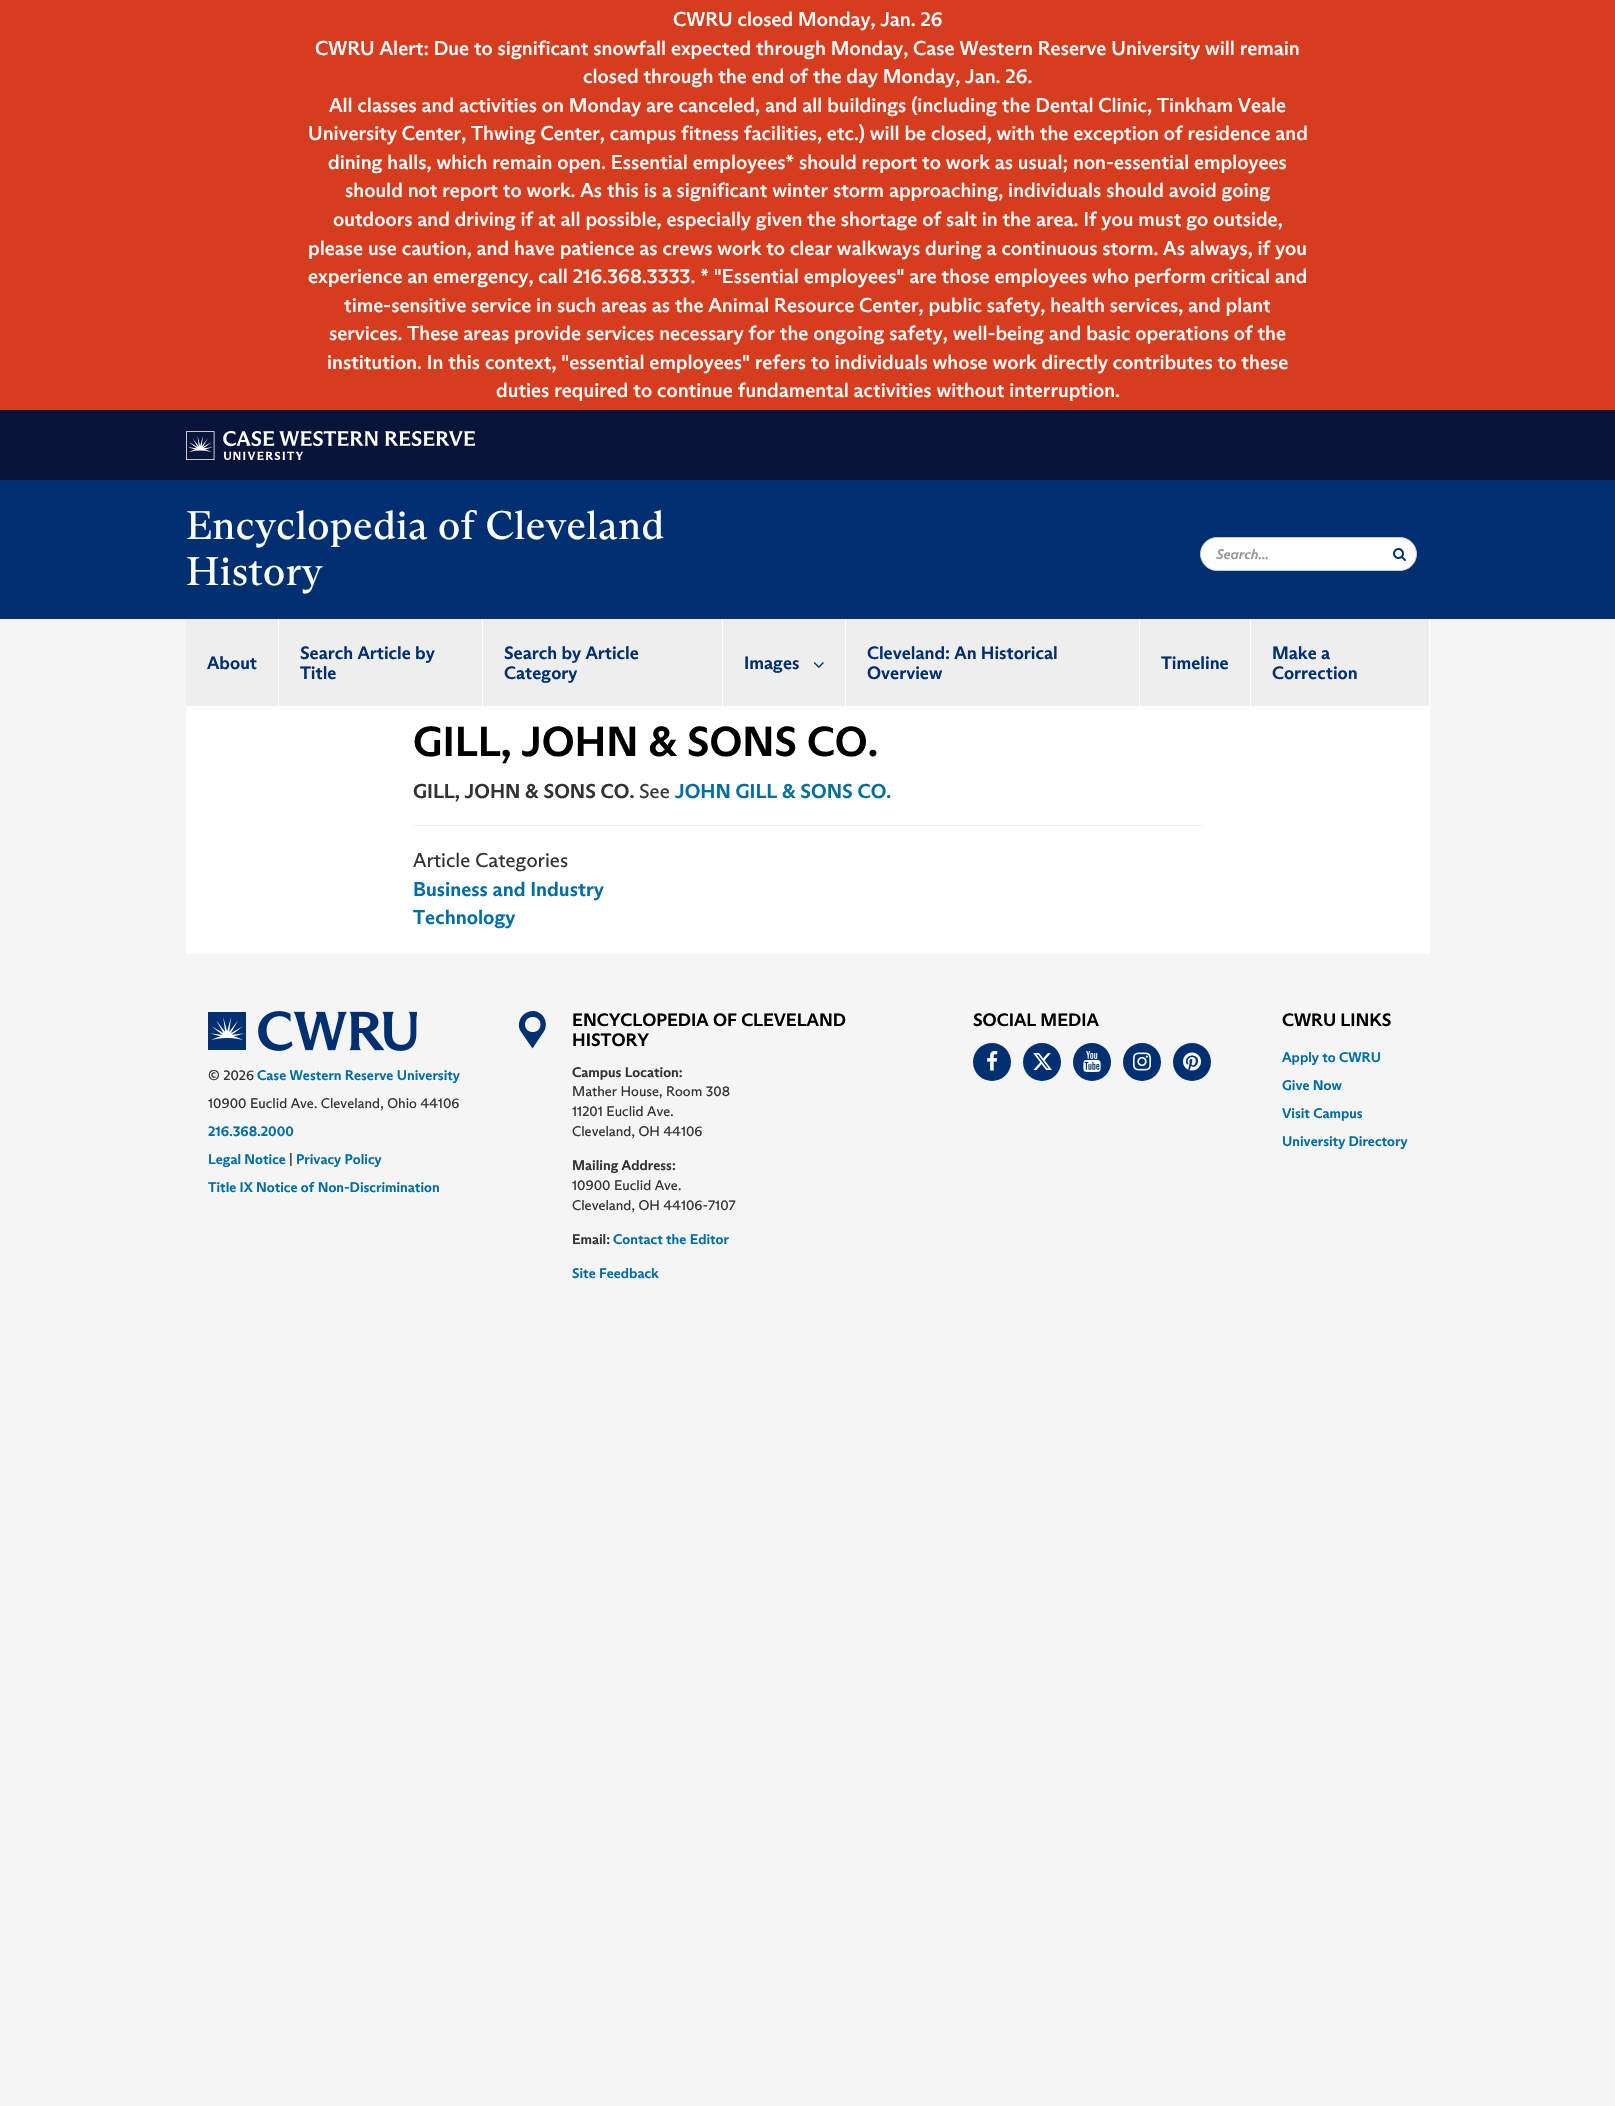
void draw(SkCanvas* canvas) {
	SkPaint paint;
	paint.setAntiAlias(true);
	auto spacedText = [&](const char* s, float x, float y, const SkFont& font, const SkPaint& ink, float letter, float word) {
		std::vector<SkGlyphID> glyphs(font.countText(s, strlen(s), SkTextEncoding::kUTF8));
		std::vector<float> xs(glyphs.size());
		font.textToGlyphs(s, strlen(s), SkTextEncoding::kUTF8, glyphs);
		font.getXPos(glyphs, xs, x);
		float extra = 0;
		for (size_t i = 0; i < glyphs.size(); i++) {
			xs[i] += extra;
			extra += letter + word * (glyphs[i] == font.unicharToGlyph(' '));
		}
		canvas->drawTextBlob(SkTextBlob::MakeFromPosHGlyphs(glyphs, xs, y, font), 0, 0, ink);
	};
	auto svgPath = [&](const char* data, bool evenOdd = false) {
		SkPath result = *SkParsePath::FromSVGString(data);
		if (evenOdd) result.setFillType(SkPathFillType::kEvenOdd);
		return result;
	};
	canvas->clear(0xfff5f5f5);
	paint.setColor(0xffd63d1f);
	canvas->drawRect(SkRect::MakeXYWH(0, 0, 1615, 410), paint);
	SkFont f1(fontMgr->matchFamilyStyle("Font", SkFontStyle(500, SkFontStyle::kNormal_Width, SkFontStyle::kUpright_Slant)), 20);
	f1.setSubpixel(true);
	paint.setColor(0xffffffff);
	canvas->drawString("CWRU closed Monday, Jan. 26", 673, 26, f1, paint);
	canvas->drawString("CWRU Alert: Due to significant snowfall expected through Monday, Case Western Reserve University will remain", 315, 55, f1, paint);
	canvas->drawString("closed through the end of the day Monday, Jan. 26.", 583, 83, f1, paint);
	canvas->drawString("All classes and activities on Monday are canceled, and all buildings (including the Dental Clinic, Tinkham Veale", 329, 112, f1, paint);
	canvas->drawString("University Center, Thwing Center, campus fitness facilities, etc.) will be closed, with the exception of residence and", 308, 140, f1, paint);
	canvas->drawString("dining halls, which remain open. Essential employees* should report to work as usual; non-essential employees", 328, 169, f1, paint);
	canvas->drawString("should not report to work. As this is a significant winter storm approaching, individuals should avoid going", 345, 197, f1, paint);
	canvas->drawString("outdoors and driving if at all possible, especially given the shortage of salt in the area. If you must go outside,", 333, 226, f1, paint);
	canvas->drawString("please use caution, and have patience as crews work to clear walkways during a continuous storm. As always, if you", 308, 255, f1, paint);
	canvas->drawString("experience an emergency, call 216.368.3333. * \"Essential employees\" are those employees who perform critical and", 308, 283, f1, paint);
	canvas->drawString("time-sensitive service in such areas as the Animal Resource Center, public safety, health services, and plant", 344, 312, f1, paint);
	canvas->drawString("services. These areas provide services necessary for the ongoing safety, well-being and basic operations of the", 329, 340, f1, paint);
	canvas->drawString("institution. In this context, \"essential employees\" refers to individuals whose work directly contributes to these", 327, 369, f1, paint);
	canvas->drawString("duties required to continue fundamental activities without interruption.", 496, 397, f1, paint);
	paint.setColor(0xff09143a);
	canvas->drawRect(SkRect::MakeXYWH(0, 410, 1615, 70), paint);
	canvas->drawImageRect(SkImages::DeferredFromEncodedData(SkData::MakeFromFileName("img1.png")), SkRect::MakeXYWH(186, 431, 289, 29), SkSamplingOptions());
	paint.setColor(0xff003071);
	canvas->drawRect(SkRect::MakeXYWH(0, 480, 1615, 139), paint);
	SkFont f2(fontMgr->matchFamilyStyle("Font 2", SkFontStyle::Normal()), 40);
	f2.setSubpixel(true);
	paint.setColor(0xffffffff);
	spacedText("Encyclopedia of Cleveland", 186, 539, f2, paint, 0.4, 0);
	spacedText("History", 186, 585, f2, paint, 0.4, 0);
	canvas->drawRoundRect(SkRect::MakeXYWH(1200.5, 537.5, 216, 33), 16.5, 16.5, paint);
	paint.setStroke(true);
	paint.setStrokeWidth(1);
	paint.setColor(0xffcccccc);
	canvas->drawRoundRect(SkRect::MakeXYWH(1200.5, 537.5, 216, 33), 16.5, 16.5, paint);
	SkFont f3(fontMgr->matchFamilyStyle("Font", SkFontStyle::BoldItalic()), 14);
	f3.setSubpixel(true);
	paint.setStroke(false);
	paint.setColor(0xff999999);
	canvas->drawString("Search...", 1216, 559, f3, paint);
	canvas->drawImageRect(SkImages::DeferredFromEncodedData(SkData::MakeFromFileName("img2.png")), SkRect::MakeXYWH(1393, 548, 13, 13), SkSamplingOptions());
	paint.setColor(0xffeeeeee);
	canvas->drawRect(SkRect::MakeXYWH(186, 619, 1243, 87), paint);
	paint.setColor(0xffffffff);
	canvas->drawRect(SkRect::MakeXYWH(278, 619, 1, 87), paint);
	SkFont f4(fontMgr->matchFamilyStyle("Font", SkFontStyle::Bold()), 18);
	f4.setSubpixel(true);
	paint.setColor(0xff003071);
	canvas->drawString("About", 207, 669, f4, paint);
	paint.setColor(0xffffffff);
	canvas->drawRect(SkRect::MakeXYWH(482, 619, 1, 87), paint);
	paint.setColor(0xff003071);
	canvas->drawString("Search Article by", 300, 659, f4, paint);
	canvas->drawString("Title", 300, 679, f4, paint);
	paint.setColor(0xffffffff);
	canvas->drawRect(SkRect::MakeXYWH(722, 619, 1, 87), paint);
	paint.setColor(0xff003071);
	canvas->drawString("Search by Article", 504, 659, f4, paint);
	canvas->drawString("Category", 504, 679, f4, paint);
	paint.setColor(0xffffffff);
	canvas->drawRect(SkRect::MakeXYWH(845, 619, 1, 87), paint);
	paint.setColor(0xff003071);
	canvas->drawString("Images", 744, 669, f4, paint);
	canvas->drawImageRect(SkImages::DeferredFromEncodedData(SkData::MakeFromFileName("img3.png")), SkRect::MakeXYWH(813, 662, 11, 6), SkSamplingOptions());
	paint.setColor(0xffffffff);
	canvas->drawRect(SkRect::MakeXYWH(1139, 619, 1, 87), paint);
	paint.setColor(0xff003071);
	canvas->drawString("Cleveland: An Historical", 867, 659, f4, paint);
	canvas->drawString("Overview", 867, 679, f4, paint);
	paint.setColor(0xffffffff);
	canvas->drawRect(SkRect::MakeXYWH(1250, 619, 1, 87), paint);
	paint.setColor(0xff003071);
	canvas->drawString("Timeline", 1161, 669, f4, paint);
	paint.setColor(0xffffffff);
	canvas->drawRect(SkRect::MakeXYWH(1429, 619, 1, 87), paint);
	paint.setColor(0xff003071);
	canvas->drawString("Make a", 1272, 659, f4, paint);
	canvas->drawString("Correction", 1272, 679, f4, paint);
	paint.setColor(0xffffffff);
	canvas->drawRect(SkRect::MakeXYWH(186, 706, 1244, 248), paint);
	SkFont f5(fontMgr->matchFamilyStyle("Font", SkFontStyle::Bold()), 42);
	f5.setSubpixel(true);
	paint.setColor(0xff000000);
	canvas->drawString("GILL, JOHN & SONS CO.", 413, 756, f5, paint);
	SkFont f6(fontMgr->matchFamilyStyle("Font", SkFontStyle::Bold()), 20);
	f6.setSubpixel(true);
	paint.setColor(0xff333333);
	canvas->drawString("GILL, JOHN & SONS CO.", 413, 798, f6, paint);
	SkFont f7(fontMgr->matchFamilyStyle("Font", SkFontStyle::Normal()), 20);
	f7.setSubpixel(true);
	canvas->drawString("See", 639, 798, f7, paint);
	paint.setColor(0xff006da3);
	canvas->drawString("JOHN GILL & SONS CO.", 675, 798, f6, paint);
	paint.setColor(0xffeeeeee);
	canvas->drawRect(SkRect::MakeXYWH(413, 825, 790, 1), paint);
	paint.setColor(0xff333333);
	canvas->drawString("Article Categories", 413, 867, f7, paint);
	paint.setColor(0xff006da3);
	canvas->drawString("Business and Industry", 413, 896, f6, paint);
	canvas->drawString("Technology", 413, 924, f6, paint);
	canvas->drawImageRect(SkImages::DeferredFromEncodedData(SkData::MakeFromFileName("img4.png")), SkRect::MakeXYWH(208, 1011, 209, 40), SkSamplingOptions());
	SkFont f8(fontMgr->matchFamilyStyle("Font", SkFontStyle::Normal()), 14);
	f8.setSubpixel(true);
	paint.setColor(0xff333333);
	canvas->drawString("© 2026", 208, 1080, f8, paint);
	SkFont f9(fontMgr->matchFamilyStyle("Font", SkFontStyle::Bold()), 14);
	f9.setSubpixel(true);
	paint.setColor(0xff006da3);
	canvas->drawString("Case Western Reserve University", 257, 1080, f9, paint);
	paint.setColor(0xff333333);
	canvas->drawString("10900 Euclid Ave. Cleveland, Ohio 44106", 208, 1108, f8, paint);
	paint.setColor(0xff006da3);
	canvas->drawString("216.368.2000", 208, 1136, f9, paint);
	canvas->drawString("Legal Notice", 208, 1164, f9, paint);
	paint.setColor(0xff333333);
	canvas->drawString("|", 289, 1164, f8, paint);
	paint.setColor(0xff006da3);
	canvas->drawString("Privacy Policy", 296, 1164, f9, paint);
	canvas->drawString("Title IX Notice of Non-Discrimination", 208, 1192, f9, paint);
	paint.setColor(0xff003071);
	canvas->drawPath(svgPath("M521.5 1032.5C513 1020.5 527.5 1005.5 539.5 1013C545.5 1016.5 547.5 1024.5 544.5 1030.5L532.5 1048.5ZM525 1024.5C525 1034.5 540.5 1034.5 540.5 1024.5C540.5 1014.5 525 1014.5 525 1024.5Z"), paint);
	paint.setColor(0xff000000);
	canvas->drawString("ENCYCLOPEDIA OF CLEVELAND", 572, 1026, f4, paint);
	canvas->drawString("HISTORY", 572, 1046, f4, paint);
	paint.setColor(0xff333333);
	canvas->drawString("Campus Location:", 572, 1077, f9, paint);
	canvas->drawString("Mather House, Room 308", 572, 1096, f8, paint);
	canvas->drawString("11201 Euclid Ave.", 572, 1116, f8, paint);
	canvas->drawString("Cleveland, OH 44106", 572, 1136, f8, paint);
	canvas->drawString("Mailing Address:", 572, 1170, f9, paint);
	canvas->drawString("10900 Euclid Ave.", 572, 1190, f8, paint);
	canvas->drawString("Cleveland, OH 44106-7107", 572, 1210, f8, paint);
	canvas->drawString("Email:", 572, 1244, f9, paint);
	paint.setColor(0xff006da3);
	canvas->drawString("Contact the Editor", 613, 1244, f9, paint);
	canvas->drawString("Site Feedback", 572, 1278, f9, paint);
	paint.setColor(0xff000000);
	canvas->drawString("SOCIAL MEDIA", 973, 1026, f4, paint);
	paint.setColor(0xff003071);
	canvas->drawCircle(992, 1062, 19, paint);
	canvas->drawImageRect(SkImages::DeferredFromEncodedData(SkData::MakeFromFileName("img5.png")), SkRect::MakeXYWH(987, 1051, 11, 20), SkSamplingOptions());
	canvas->drawCircle(1042, 1062, 19, paint);
	canvas->drawImageRect(SkImages::DeferredFromEncodedData(SkData::MakeFromFileName("img6.png")), SkRect::MakeXYWH(1033, 1053, 19, 17), SkSamplingOptions());
	canvas->drawCircle(1092, 1062, 19, paint);
	canvas->drawImageRect(SkImages::DeferredFromEncodedData(SkData::MakeFromFileName("img7.png")), SkRect::MakeXYWH(1083, 1051, 18, 21), SkSamplingOptions());
	canvas->drawCircle(1142, 1062, 19, paint);
	canvas->drawImageRect(SkImages::DeferredFromEncodedData(SkData::MakeFromFileName("img8.png")), SkRect::MakeXYWH(1133, 1052, 18, 19), SkSamplingOptions());
	canvas->drawCircle(1192, 1062, 19, paint);
	canvas->drawImageRect(SkImages::DeferredFromEncodedData(SkData::MakeFromFileName("img9.png")), SkRect::MakeXYWH(1183, 1052, 18, 19), SkSamplingOptions());
	paint.setColor(0xff000000);
	canvas->drawString("CWRU LINKS", 1282, 1026, f4, paint);
	paint.setColor(0xff006da3);
	canvas->drawString("Apply to CWRU", 1282, 1062, f9, paint);
	canvas->drawString("Give Now", 1282, 1090, f9, paint);
	canvas->drawString("Visit Campus", 1282, 1118, f9, paint);
	canvas->drawString("University Directory", 1282, 1146, f9, paint);
}
